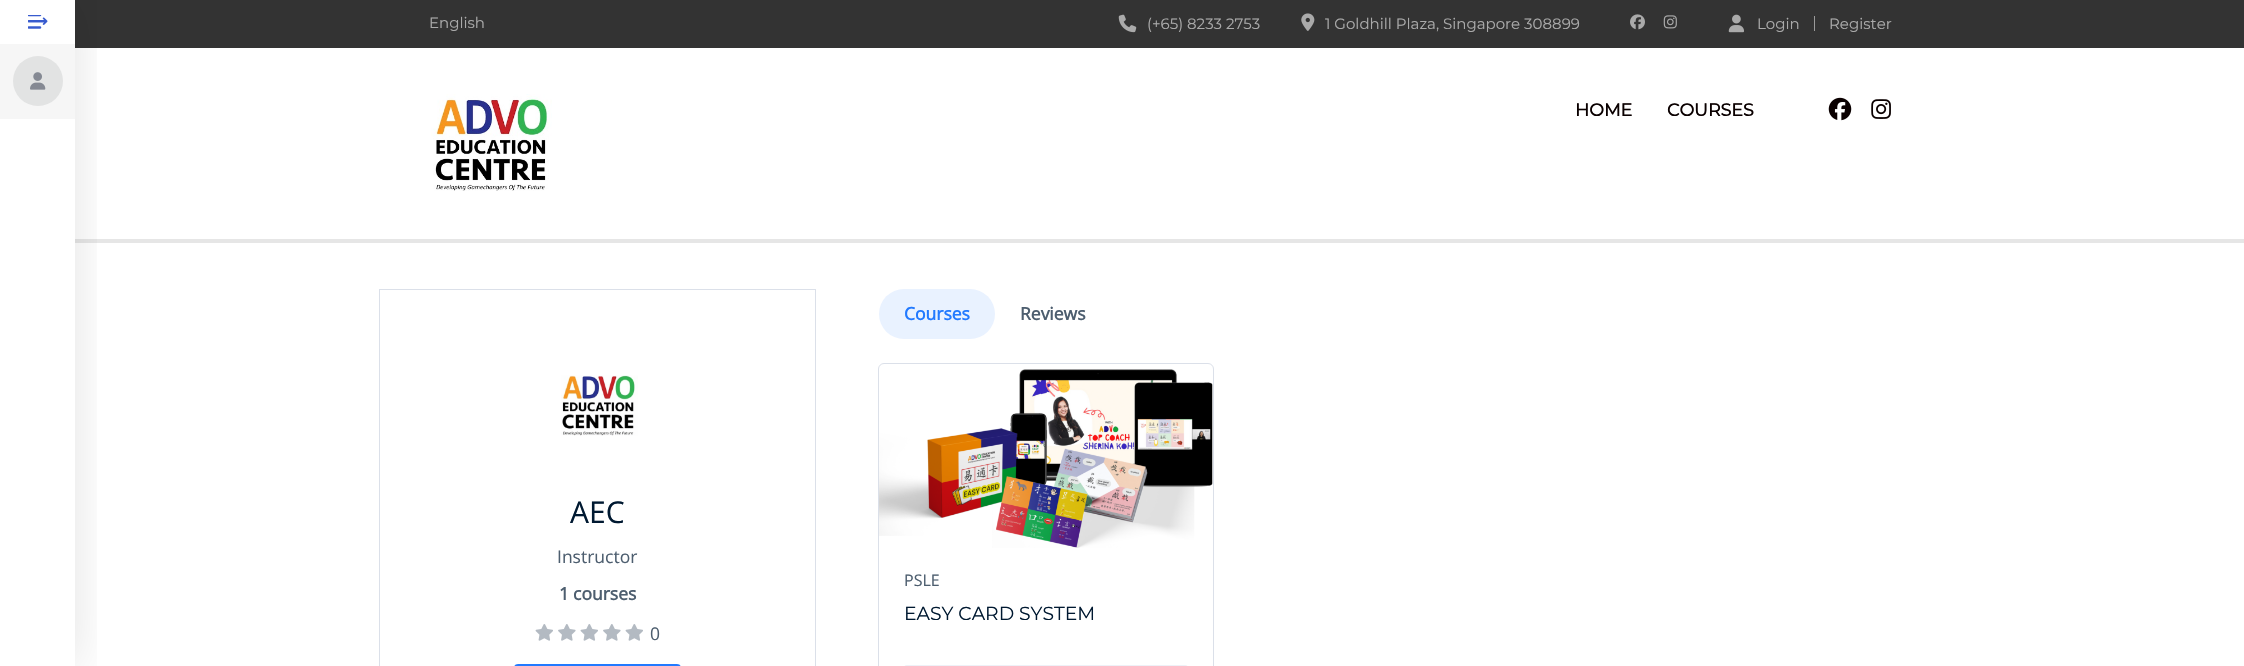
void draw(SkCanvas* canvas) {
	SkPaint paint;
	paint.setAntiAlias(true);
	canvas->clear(0xffffffff);
	paint.setColor(0xff333333);
	canvas->drawRect(SkRect::MakeXYWH(75, 0, 2169, 48), paint);
	paint.setColor(0xffe6e6e6);
	canvas->drawRect(SkRect::MakeXYWH(75, 239, 2169, 4), paint);
	canvas->save();
	canvas->clipRect(SkRect::MakeXYWH(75, 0, 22, 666));
	paint.setColor(0x1c000000);
	paint.setMaskFilter(SkMaskFilter::MakeBlur(kNormal_SkBlurStyle, 24));
	canvas->drawRect(SkRect::MakeXYWH(0, 0, 75, 666), paint);
	paint.setMaskFilter(nullptr);
	canvas->restore();
	canvas->drawImageRect(SkImages::DeferredFromEncodedData(SkData::MakeFromFileName("img1.png")), SkRect::MakeXYWH(28, 15, 20, 14), SkSamplingOptions());
	paint.setColor(0xfff6f6f6);
	canvas->drawRect(SkRect::MakeXYWH(0, 44, 75, 75), paint);
	paint.setColor(0xffe2e3e3);
	canvas->drawCircle(38, 81, 25, paint);
	canvas->drawImageRect(SkImages::DeferredFromEncodedData(SkData::MakeFromFileName("img2.png")), SkRect::MakeXYWH(30, 72, 16, 18), SkSamplingOptions());
	SkFont f1(fontMgr->matchFamilyStyle("Montserrat", SkFontStyle(100, SkFontStyle::kNormal_Width, SkFontStyle::kUpright_Slant)), 15);
	f1.setSubpixel(true);
	paint.setColor(0xffaaaaaa);
	canvas->drawString("English", 429, 28, f1, paint);
	canvas->drawImageRect(SkImages::DeferredFromEncodedData(SkData::MakeFromFileName("img3.png")), SkRect::MakeXYWH(1118, 14, 19, 19), SkSamplingOptions());
	canvas->drawString("(+65) 8233 2753", 1147, 29, f1, paint);
	canvas->drawImageRect(SkImages::DeferredFromEncodedData(SkData::MakeFromFileName("img4.png")), SkRect::MakeXYWH(1301, 13, 14, 18), SkSamplingOptions());
	canvas->drawString("1 Goldhill Plaza, Singapore 308899", 1325, 29, f1, paint);
	canvas->drawImageRect(SkImages::DeferredFromEncodedData(SkData::MakeFromFileName("img5.png")), SkRect::MakeXYWH(1630, 14, 15, 16), SkSamplingOptions());
	canvas->drawImageRect(SkImages::DeferredFromEncodedData(SkData::MakeFromFileName("img6.png")), SkRect::MakeXYWH(1663, 15, 14, 14), SkSamplingOptions());
	canvas->drawImageRect(SkImages::DeferredFromEncodedData(SkData::MakeFromFileName("img7.png")), SkRect::MakeXYWH(1728, 14, 16, 19), SkSamplingOptions());
	canvas->drawString("Login", 1757, 29, f1, paint);
	paint.setColor(0xff9a9a9a);
	canvas->drawRect(SkRect::MakeXYWH(1814, 16, 1, 15), paint);
	paint.setColor(0xffaaaaaa);
	canvas->drawString("Register", 1829, 29, f1, paint);
	canvas->drawImageRect(SkImages::DeferredFromEncodedData(SkData::MakeFromFileName("img8.png")), SkRect::MakeXYWH(431, 94, 121, 97), SkSamplingOptions());
	SkFont f2(fontMgr->matchFamilyStyle("Montserrat", SkFontStyle::Bold()), 17.5);
	f2.setSubpixel(true);
	paint.setColor(0xff0a0000);
	canvas->drawString("HOME", 1575, 116, f2, paint);
	canvas->drawString("COURSES", 1667, 116, f2, paint);
	canvas->drawImageRect(SkImages::DeferredFromEncodedData(SkData::MakeFromFileName("img9.png")), SkRect::MakeXYWH(1828, 97, 24, 24), SkSamplingOptions());
	canvas->drawImageRect(SkImages::DeferredFromEncodedData(SkData::MakeFromFileName("img10.png")), SkRect::MakeXYWH(1871, 99, 20, 20), SkSamplingOptions());
	paint.setStroke(true);
	paint.setStrokeWidth(1);
	paint.setColor(0xffdbe0e9);
	canvas->drawRect(SkRect::MakeXYWH(379.5, 289.5, 436, 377), paint);
	canvas->drawImageRect(SkImages::DeferredFromEncodedData(SkData::MakeFromFileName("img11.png")), SkRect::MakeXYWH(561, 375, 77, 61), SkSamplingOptions());
	SkFont f3(fontMgr->matchFamilyStyle("Open Sans", SkFontStyle::Normal()), 30);
	f3.setSubpixel(true);
	paint.setStroke(false);
	paint.setColor(0xff001931);
	canvas->drawString("AEC", 570, 523, f3, paint);
	SkFont f4(fontMgr->matchFamilyStyle("Open Sans", SkFontStyle::Normal()), 17.5);
	f4.setSubpixel(true);
	paint.setColor(0xff4d5e6f);
	canvas->drawString("Instructor", 557, 563, f4, paint);
	SkFont f5(fontMgr->matchFamilyStyle("Open Sans", SkFontStyle::Bold()), 17.5);
	f5.setSubpixel(true);
	canvas->drawString("1", 559, 600, f5, paint);
	canvas->drawString("courses", 573, 600, f5, paint);
	canvas->drawImageRect(SkImages::DeferredFromEncodedData(SkData::MakeFromFileName("img12.png")), SkRect::MakeXYWH(535, 624, 18, 17), SkSamplingOptions());
	canvas->drawImageRect(SkImages::DeferredFromEncodedData(SkData::MakeFromFileName("img13.png")), SkRect::MakeXYWH(558, 624, 18, 17), SkSamplingOptions());
	canvas->drawImageRect(SkImages::DeferredFromEncodedData(SkData::MakeFromFileName("img12.png")), SkRect::MakeXYWH(580, 624, 18, 17), SkSamplingOptions());
	canvas->drawImageRect(SkImages::DeferredFromEncodedData(SkData::MakeFromFileName("img13.png")), SkRect::MakeXYWH(603, 624, 18, 17), SkSamplingOptions());
	canvas->drawImageRect(SkImages::DeferredFromEncodedData(SkData::MakeFromFileName("img12.png")), SkRect::MakeXYWH(625, 624, 18, 17), SkSamplingOptions());
	canvas->drawString("0", 650, 640, f4, paint);
	paint.setColor(0xff227aff);
	canvas->drawRoundRect(SkRect::MakeXYWH(514, 664, 167, 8), 6, 6, paint);
	paint.setColor(0xffe9f2ff);
	canvas->drawRoundRect(SkRect::MakeXYWH(879, 289, 116, 50), 25, 25, paint);
	paint.setColor(0xff227aff);
	canvas->drawString("Courses", 904, 320, f5, paint);
	paint.setColor(0xff4d5e6f);
	canvas->drawString("Reviews", 1020, 320, f5, paint);
	canvas->drawImageRect(SkImages::DeferredFromEncodedData(SkData::MakeFromFileName("img14.png")), SkRect::MakeXYWH(879, 369, 334, 179), SkSamplingOptions());
	paint.setColor(0xffeef1f7);
	canvas->drawRoundRect(SkRect::MakeXYWH(904, 665, 284, 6), 5, 5, paint);
	paint.setStroke(true);
	paint.setColor(0xffdbe0e9);
	canvas->drawRoundRect(SkRect::MakeXYWH(878.5, 363.5, 335, 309), 5.5, 5.5, paint);
	SkFont f6(fontMgr->matchFamilyStyle("Open Sans", SkFontStyle::Normal()), 16);
	f6.setSubpixel(true);
	paint.setStroke(false);
	paint.setColor(0xff4d5e6f);
	canvas->drawString("PSLE", 904, 586, f6, paint);
	SkFont f7(fontMgr->matchFamilyStyle("Montserrat", SkFontStyle(100, SkFontStyle::kNormal_Width, SkFontStyle::kUpright_Slant)), 18.75);
	f7.setSubpixel(true);
	paint.setColor(0xff001931);
	canvas->drawString("EASY CARD SYSTEM", 904, 620, f7, paint);
}
